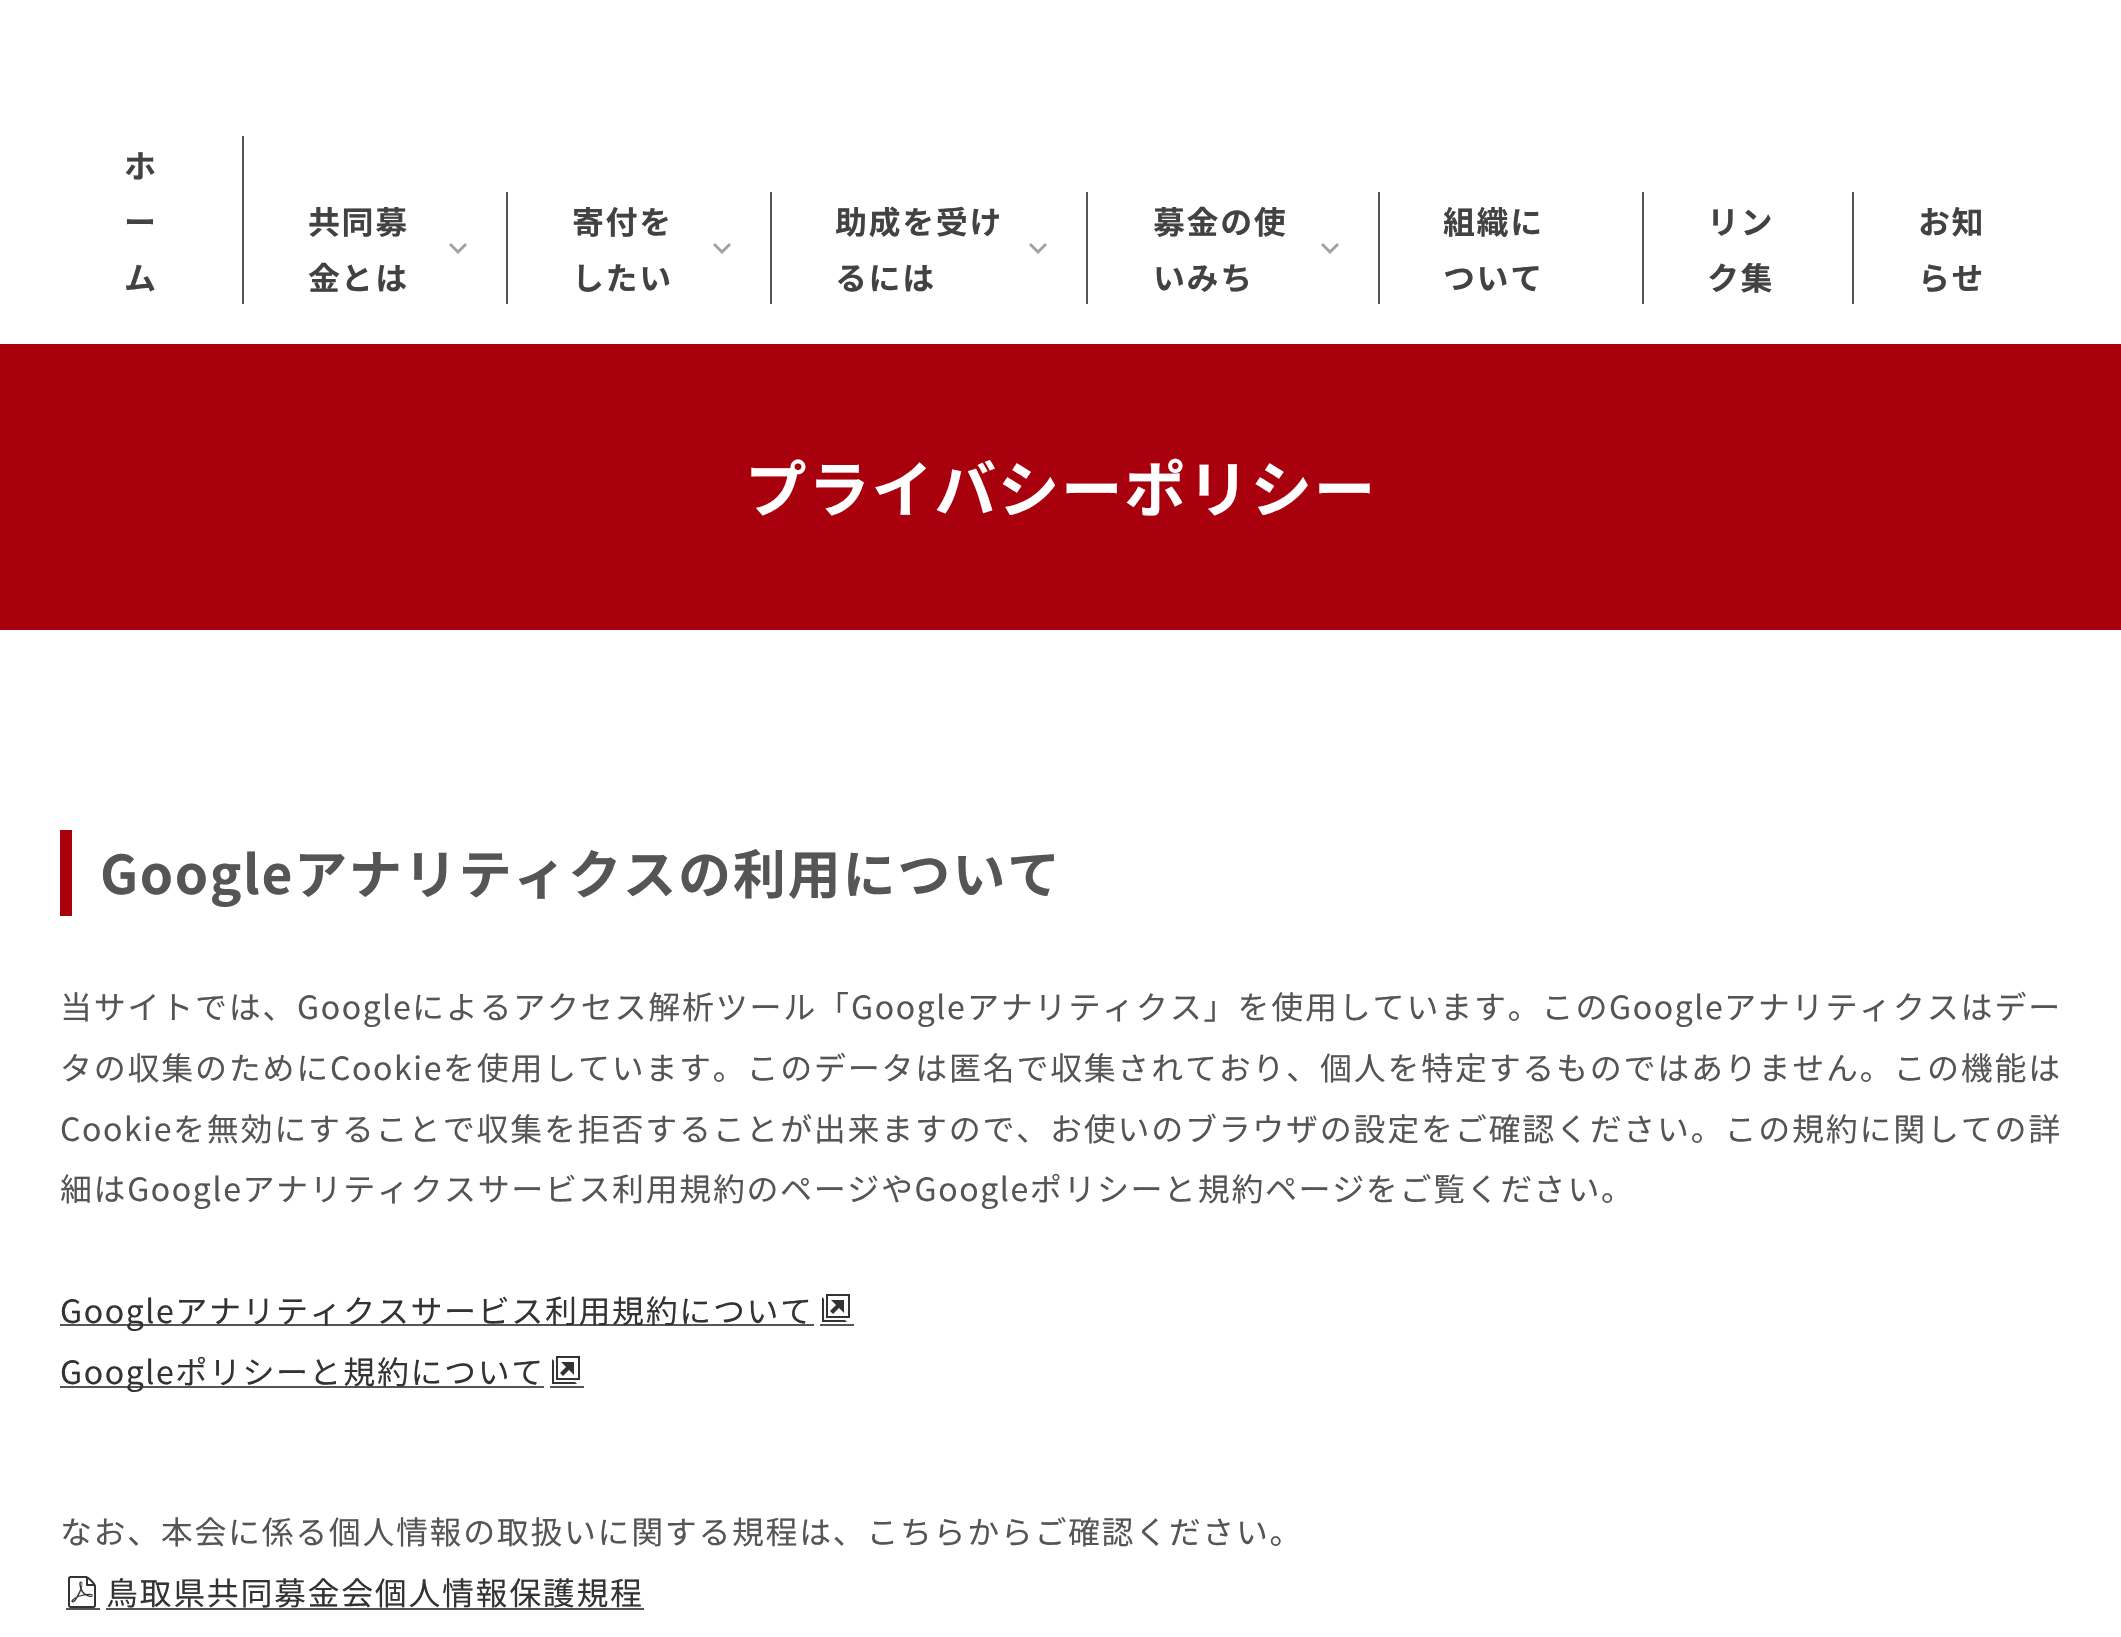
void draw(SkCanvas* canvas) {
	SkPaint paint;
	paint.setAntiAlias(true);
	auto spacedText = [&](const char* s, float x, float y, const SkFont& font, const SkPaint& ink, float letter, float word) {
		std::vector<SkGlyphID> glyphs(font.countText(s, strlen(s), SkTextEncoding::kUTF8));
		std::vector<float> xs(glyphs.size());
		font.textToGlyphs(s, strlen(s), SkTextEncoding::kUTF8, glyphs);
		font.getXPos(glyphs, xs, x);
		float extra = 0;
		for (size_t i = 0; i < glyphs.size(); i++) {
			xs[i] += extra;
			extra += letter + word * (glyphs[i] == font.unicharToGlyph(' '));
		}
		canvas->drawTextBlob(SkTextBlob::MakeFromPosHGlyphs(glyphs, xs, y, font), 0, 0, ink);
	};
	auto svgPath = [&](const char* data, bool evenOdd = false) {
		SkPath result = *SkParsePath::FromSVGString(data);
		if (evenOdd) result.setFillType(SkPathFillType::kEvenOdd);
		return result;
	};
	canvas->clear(0xffffffff);
	paint.setColor(0xff555555);
	canvas->drawRect(SkRect::MakeXYWH(242, 136, 2, 168), paint);
	SkFont f1(fontMgr->matchFamilyStyle("Noto Sans JP", SkFontStyle::Bold()), 32);
	f1.setSubpixel(true);
	paint.setColor(0xff414242);
	spacedText("ホ", 124, 178, f1, paint, 1.6, 0);
	spacedText("ー", 124, 234, f1, paint, 1.6, 0);
	spacedText("ム", 124, 290, f1, paint, 1.6, 0);
	paint.setColor(0xff555555);
	canvas->drawRect(SkRect::MakeXYWH(506, 192, 2, 112), paint);
	paint.setColor(0xff414242);
	spacedText("共同募", 308, 234, f1, paint, 1.6, 0);
	paint.setColor(0xffa0a1a1);
	canvas->drawPath(svgPath("M458 254L449 245L451 243L458 250L465 243L467 245Z"), paint);
	paint.setColor(0xff414242);
	spacedText("金とは", 308, 290, f1, paint, 1.6, 0);
	paint.setColor(0xff555555);
	canvas->drawRect(SkRect::MakeXYWH(770, 192, 2, 112), paint);
	paint.setColor(0xff414242);
	spacedText("寄付を", 572, 234, f1, paint, 1.6, 0);
	paint.setColor(0xffa0a1a1);
	canvas->drawPath(svgPath("M722 254L713 245L715 243L722 250L729 243L731 245Z"), paint);
	paint.setColor(0xff414242);
	spacedText("したい", 572, 290, f1, paint, 1.6, 0);
	paint.setColor(0xff555555);
	canvas->drawRect(SkRect::MakeXYWH(1086, 192, 2, 112), paint);
	paint.setColor(0xff414242);
	spacedText("助成を受け", 835, 234, f1, paint, 1.6, 0);
	paint.setColor(0xffa0a1a1);
	canvas->drawPath(svgPath("M1038 254L1029 245L1031 243L1038 250L1045 243L1047 245Z"), paint);
	paint.setColor(0xff414242);
	spacedText("るには", 835, 290, f1, paint, 1.6, 0);
	paint.setColor(0xff555555);
	canvas->drawRect(SkRect::MakeXYWH(1378, 192, 2, 112), paint);
	paint.setColor(0xff414242);
	spacedText("募金の使", 1153, 234, f1, paint, 1.6, 0);
	paint.setColor(0xffa0a1a1);
	canvas->drawPath(svgPath("M1330 254L1321 245L1323 243L1330 250L1337 243L1339 245Z"), paint);
	paint.setColor(0xff414242);
	spacedText("いみち", 1153, 290, f1, paint, 1.6, 0);
	paint.setColor(0xff555555);
	canvas->drawRect(SkRect::MakeXYWH(1642, 192, 2, 112), paint);
	paint.setColor(0xff414242);
	spacedText("組織に", 1443, 234, f1, paint, 1.6, 0);
	spacedText("ついて", 1443, 290, f1, paint, 1.6, 0);
	paint.setColor(0xff555555);
	canvas->drawRect(SkRect::MakeXYWH(1852, 192, 2, 112), paint);
	paint.setColor(0xff414242);
	spacedText("リン", 1707, 234, f1, paint, 1.6, 0);
	spacedText("ク集", 1707, 290, f1, paint, 1.6, 0);
	spacedText("お知", 1918, 234, f1, paint, 1.6, 0);
	spacedText("らせ", 1918, 290, f1, paint, 1.6, 0);
	paint.setColor(0xffa9000e);
	canvas->drawRect(SkRect::MakeXYWH(0, 344, 2121, 286), paint);
	SkFont f2(fontMgr->matchFamilyStyle("Noto Sans JP", SkFontStyle::Bold()), 61.6);
	f2.setSubpixel(true);
	paint.setColor(0xffffffff);
	spacedText("プライバシーポリシー", 745, 512, f2, paint, 1.6, 0);
	paint.setColor(0xffa9000e);
	canvas->drawRect(SkRect::MakeXYWH(60, 830, 12, 86), paint);
	SkFont f3(fontMgr->matchFamilyStyle("Noto Sans JP", SkFontStyle::Bold()), 53.25);
	f3.setSubpixel(true);
	paint.setColor(0xff555555);
	spacedText("Googleアナリティクスの利用について", 100, 894, f3, paint, 1.6, 0);
	SkFont f4(fontMgr->matchFamilyStyle("Noto Sans JP", SkFontStyle::Normal()), 32);
	f4.setSubpixel(true);
	spacedText("当サイトでは、", 60, 1019, f4, paint, 1.75, 0);
	spacedText("Google", 297, 1019, f4, paint, 1.6, 0);
	spacedText("によるアクセス解析ツール「", 412, 1019, f4, paint, 1.75, 0);
	spacedText("Google", 851, 1019, f4, paint, 1.6, 0);
	spacedText("アナリティクス」を使用しています。この", 967, 1019, f4, paint, 1.8, 0);
	spacedText("Google", 1609, 1019, f4, paint, 1.6, 0);
	spacedText("アナリティクスはデー", 1724, 1019, f4, paint, 1.8, 0);
	spacedText("タの収集のために", 60, 1080, f4, paint, 1.75, 0);
	spacedText("Cookie", 330, 1080, f4, paint, 1.6, 0);
	spacedText("を使用しています。このデータは匿名で収集されており、個人を特定するものではありません。この機能は", 443, 1080, f4, paint, 1.73, 0);
	spacedText("Cookie", 60, 1141, f4, paint, 1.6, 0);
	spacedText("を無効にすることで収集を拒否することが出来ますので、お使いのブラウザの設定をご確認ください。この規約に関しての詳", 173, 1141, f4, paint, 1.73, 0);
	spacedText("細はGoogleアナリティクスサービス利用規約のページやGoogleポリシーと規約ページをご覧ください。", 60, 1201, f4, paint, 1.6, 0);
	canvas->drawRect(SkRect::MakeXYWH(60, 1324, 754, 2), paint);
	paint.setColor(0xff333333);
	spacedText("Googleアナリティクスサービス利用規約について", 60, 1323, f4, paint, 1.6, 0);
	paint.setColor(0xff555555);
	canvas->drawRect(SkRect::MakeXYWH(820, 1324, 34, 2), paint);
	canvas->drawImageRect(SkImages::DeferredFromEncodedData(SkData::MakeFromFileName("img1.png")), SkRect::MakeXYWH(822, 1294, 28, 28), SkSamplingOptions());
	canvas->drawRect(SkRect::MakeXYWH(60, 1386, 484, 2), paint);
	paint.setColor(0xff333333);
	spacedText("Googleポリシーと規約について", 60, 1384, f4, paint, 1.6, 0);
	paint.setColor(0xff555555);
	canvas->drawRect(SkRect::MakeXYWH(550, 1386, 34, 2), paint);
	canvas->drawImageRect(SkImages::DeferredFromEncodedData(SkData::MakeFromFileName("img1.png")), SkRect::MakeXYWH(552, 1356, 28, 28), SkSamplingOptions());
	spacedText("なお、本会に係る個人情報の取扱いに関する規程は、こちらからご確認ください。", 60, 1544, f4, paint, 1.6, 0);
	canvas->drawImageRect(SkImages::DeferredFromEncodedData(SkData::MakeFromFileName("img2.png")), SkRect::MakeXYWH(68, 1576, 28, 32), SkSamplingOptions());
	paint.setColor(0xff333333);
	spacedText("鳥取県共同募金会個人情報保護規程", 106, 1605, f4, paint, 1.6, 0);
	paint.setColor(0xff555555);
	canvas->drawRect(SkRect::MakeXYWH(66, 1608, 34, 2), paint);
	canvas->drawRect(SkRect::MakeXYWH(106, 1608, 538, 2), paint);
}
